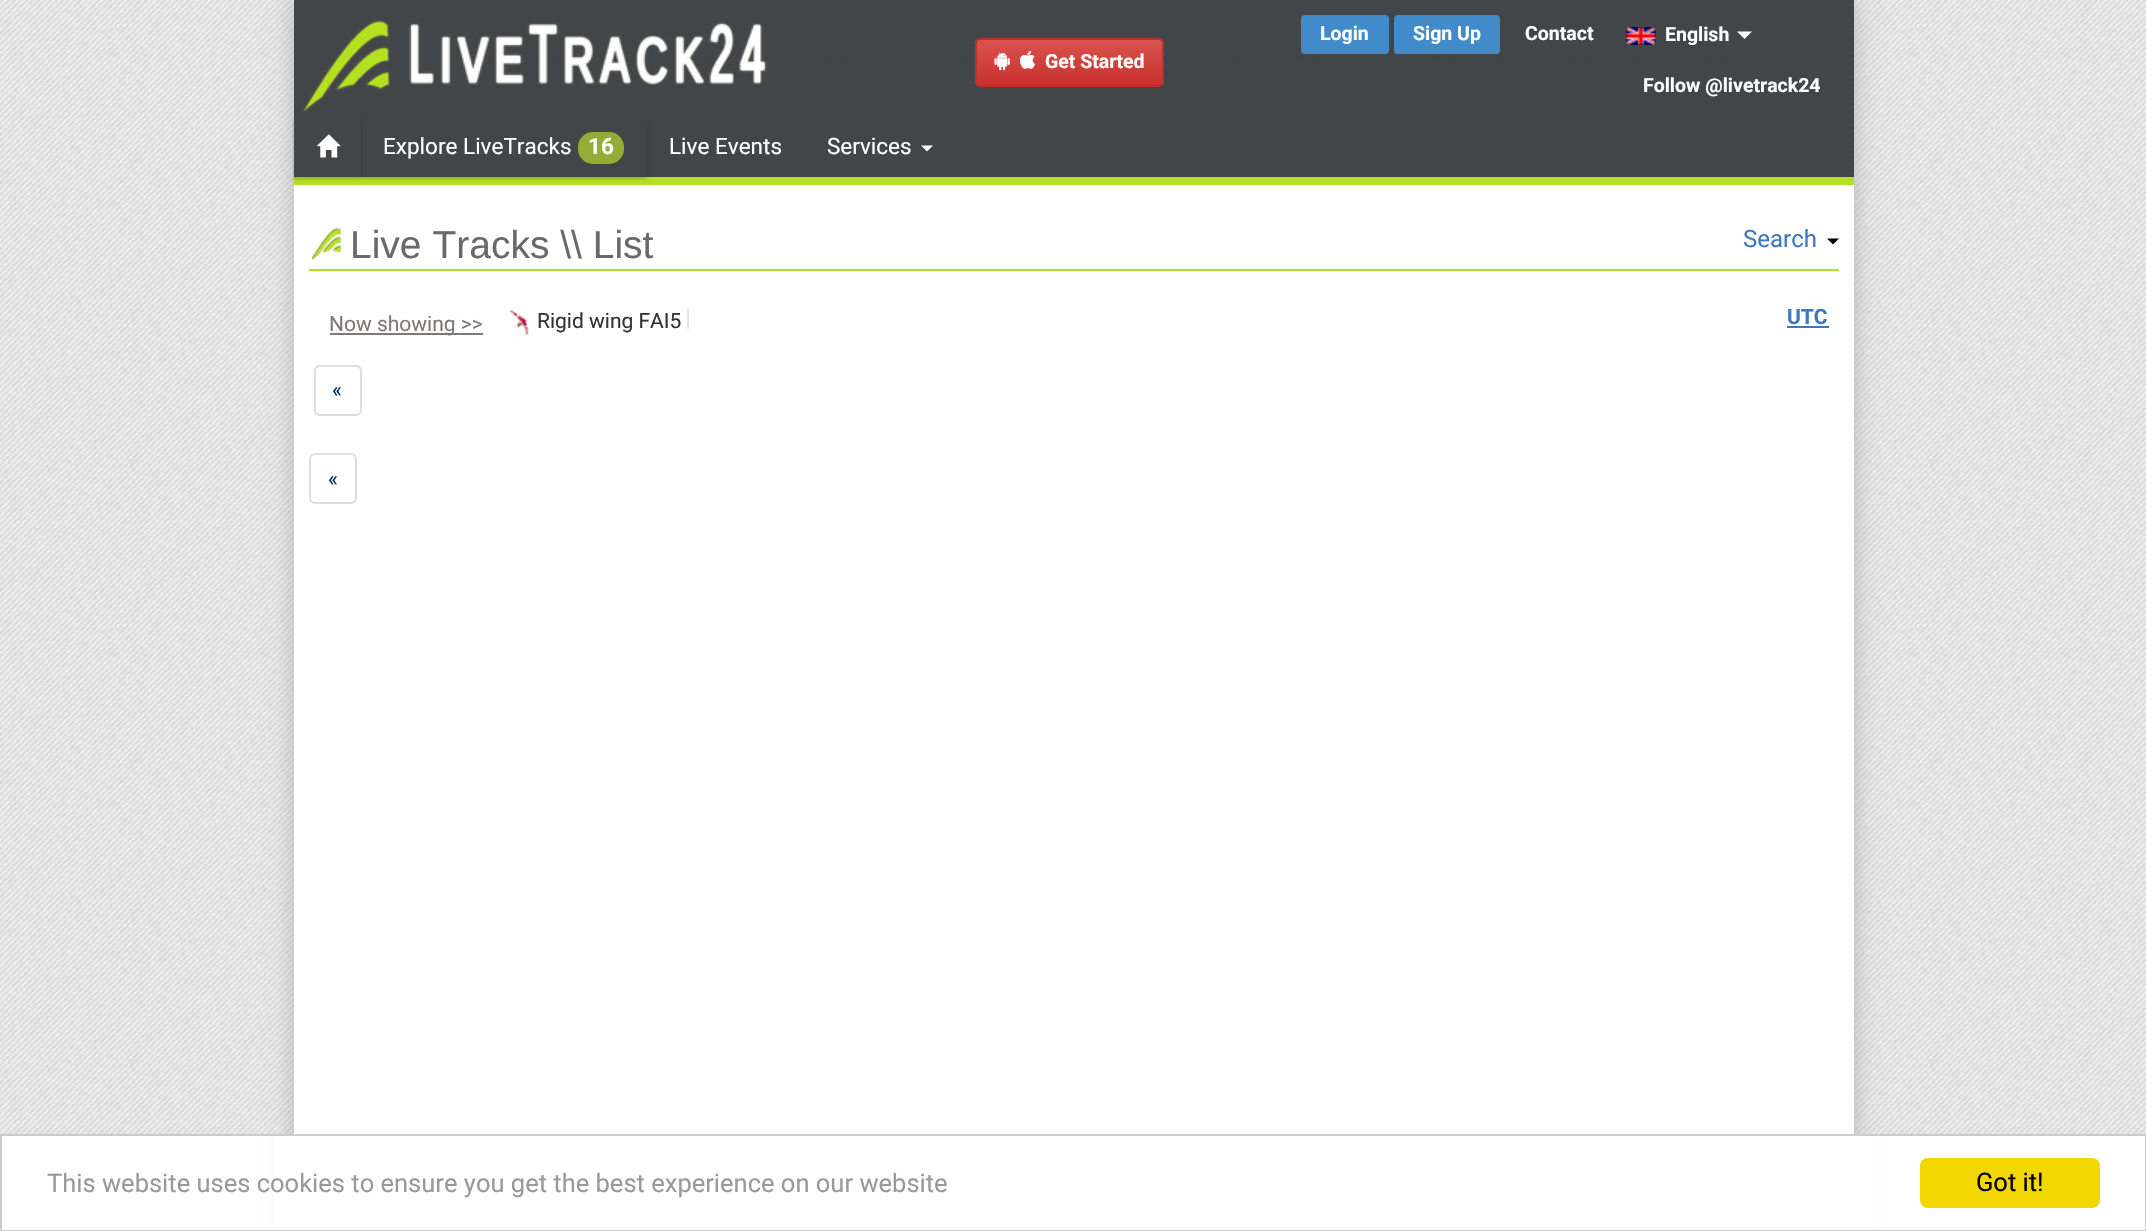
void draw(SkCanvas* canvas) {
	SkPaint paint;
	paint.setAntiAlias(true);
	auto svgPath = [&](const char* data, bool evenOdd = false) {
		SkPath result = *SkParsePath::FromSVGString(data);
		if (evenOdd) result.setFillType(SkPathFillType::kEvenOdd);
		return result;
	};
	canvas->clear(0xffffffff);
	canvas->drawImageRect(SkImages::DeferredFromEncodedData(SkData::MakeFromFileName("img1.png")), SkRect::MakeXYWH(0, 0, 2146, 1134), SkSamplingOptions());
	paint.setColor(0xffb4b4b4);
	paint.setMaskFilter(SkMaskFilter::MakeBlur(kNormal_SkBlurStyle, 11));
	canvas->drawRect(SkRect::MakeXYWH(294, 0, 1560, 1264), paint);
	paint.setMaskFilter(nullptr);
	paint.setColor(0xff424649);
	canvas->drawRect(SkRect::MakeXYWH(294, 0, 1560, 177), paint);
	canvas->drawImageRect(SkImages::DeferredFromEncodedData(SkData::MakeFromFileName("img2.png")), SkRect::MakeXYWH(422, 56, 1351, 1), SkSamplingOptions());
	canvas->drawImageRect(SkImages::DeferredFromEncodedData(SkData::MakeFromFileName("img3.png")), SkRect::MakeXYWH(302, 20, 466, 91), SkSamplingOptions());
	paint.setColor(0xff428bca);
	canvas->drawRoundRect(SkRect::MakeXYWH(1301, 15, 88, 39), 4, 4, paint);
	SkFont f1(fontMgr->matchFamilyStyle("Roboto", SkFontStyle::Bold()), 19.5);
	f1.setSubpixel(true);
	paint.setColor(0xffffffff);
	canvas->drawString("Login", 1320, 40, f1, paint);
	paint.setColor(0xff428bca);
	canvas->drawRoundRect(SkRect::MakeXYWH(1394, 15, 106, 39), 4, 4, paint);
	paint.setColor(0xffffffff);
	canvas->drawString("Sign Up", 1413, 40, f1, paint);
	canvas->drawString("Contact", 1525, 40, f1, paint);
	canvas->drawImageRect(SkImages::DeferredFromEncodedData(SkData::MakeFromFileName("img4.png")), SkRect::MakeXYWH(1626, 27, 30, 18), SkSamplingOptions());
	canvas->drawString("English", 1665, 41, f1, paint);
	canvas->drawPath(svgPath("M1737 31.5H1752L1744.5 39Z"), paint);
	canvas->save();
	canvas->clipPath(svgPath("M981 38H1158C1161.5 38 1164 40.5 1164 44V81C1164 84.5 1161.5 87 1158 87H981C977.5 87 975 84.5 975 81V44C975 40.5 977.5 38 981 38Z"), true);
	{
		const SkColor colors[] = {0xffd9534f, 0xffc9302c};
		const float stops[] = {0, 1};
		const SkPoint ends[] = {{1070, 39}, {1070, 86}};
		paint.setShader(SkGradientShader::MakeLinear(ends, colors, stops, 2, SkTileMode::kClamp));
		paint.setAlpha(255);
	}
	canvas->drawRect(SkRect::MakeXYWH(975, 39, 189, 47), paint);
	canvas->restore();
	paint.setShader(nullptr);
	paint.setColor(0x26ffffff);
	canvas->drawPath(svgPath("M981 40H1158C1160 40 1162 43 1162 45V82L1161 85C1162 84 1163 82 1163 81V44C1163 41 1161 39 1158 39H982C980 39 978 40 977 42C978 41 980 40 981 40Z"), paint);
	paint.setStroke(true);
	paint.setStrokeWidth(2);
	paint.setColor(0xffc12e2a);
	canvas->drawRoundRect(SkRect::MakeXYWH(976, 39, 187, 47), 5, 5, paint);
	canvas->drawImageRect(SkImages::DeferredFromEncodedData(SkData::MakeFromFileName("img5.png")), SkRect::MakeXYWH(994, 52, 16, 19), SkSamplingOptions());
	canvas->drawImageRect(SkImages::DeferredFromEncodedData(SkData::MakeFromFileName("img6.png")), SkRect::MakeXYWH(1020, 50, 16, 19), SkSamplingOptions());
	paint.setStroke(false);
	paint.setColor(0xffffffff);
	canvas->drawString("Get Started", 1045, 68, f1, paint);
	canvas->drawString("Follow @livetrack24", 1643, 92, f1, paint);
	paint.setColor(0xffb5df21);
	canvas->drawRect(SkRect::MakeXYWH(294, 177, 1560, 8), paint);
	canvas->save();
	canvas->clipPath(svgPath("M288 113H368V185H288ZM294 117H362V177H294Z", true), true);
	paint.setColor(0x33000000);
	paint.setMaskFilter(SkMaskFilter::MakeBlur(kNormal_SkBlurStyle, 1.5));
	canvas->drawRect(SkRect::MakeXYWH(294, 119, 68, 60), paint);
	paint.setMaskFilter(nullptr);
	canvas->restore();
	paint.setColor(0xff424649);
	canvas->drawRect(SkRect::MakeXYWH(361, 119, 1, 3), paint);
	canvas->drawImageRect(SkImages::DeferredFromEncodedData(SkData::MakeFromFileName("img7.png")), SkRect::MakeXYWH(316, 134, 25, 24), SkSamplingOptions());
	canvas->save();
	canvas->clipPath(svgPath("M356 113H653V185H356ZM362 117H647V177H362Z", true), true);
	paint.setColor(0x33000000);
	paint.setMaskFilter(SkMaskFilter::MakeBlur(kNormal_SkBlurStyle, 1.5));
	canvas->drawRect(SkRect::MakeXYWH(362, 119, 285, 60), paint);
	paint.setMaskFilter(nullptr);
	canvas->restore();
	paint.setColor(0xff424649);
	canvas->drawRect(SkRect::MakeXYWH(362, 119, 286, 3), paint);
	SkFont f2(fontMgr->matchFamilyStyle("Roboto", SkFontStyle::Normal()), 22.5);
	f2.setSubpixel(true);
	paint.setColor(0xffffffff);
	canvas->drawString("Explore LiveTracks", 383, 154, f2, paint);
	paint.setColor(0xff97ac34);
	canvas->drawRoundRect(SkRect::MakeXYWH(578, 132, 46, 32), 15, 15, paint);
	SkFont f3(fontMgr->matchFamilyStyle("Roboto", SkFontStyle::Bold()), 22.5);
	f3.setSubpixel(true);
	paint.setColor(0xffffffff);
	canvas->drawString("16", 588, 154, f3, paint);
	canvas->drawString("Live Events", 669, 154, f2, paint);
	canvas->drawString("Services", 827, 154, f2, paint);
	canvas->drawPath(svgPath("M921 145.5H933L927 151.5Z"), paint);
	canvas->drawRect(SkRect::MakeXYWH(294, 185, 1560, 949), paint);
	canvas->drawImageRect(SkImages::DeferredFromEncodedData(SkData::MakeFromFileName("img8.png")), SkRect::MakeXYWH(311, 227, 31, 33), SkSamplingOptions());
	paint.setColor(0xffb5df21);
	canvas->drawRect(SkRect::MakeXYWH(309, 269, 1530, 2), paint);
	SkFont f4(fontMgr->matchFamilyStyle("Liberation Sans", SkFontStyle::Normal()), 39);
	f4.setSubpixel(true);
	paint.setColor(0xff696969);
	canvas->drawString("Live Tracks \\\\ List", 350, 258, f4, paint);
	SkFont f5(fontMgr->matchFamilyStyle("Roboto", SkFontStyle::Normal()), 24);
	f5.setSubpixel(true);
	paint.setColor(0xff3d78bf);
	canvas->drawString("Search", 1743, 247, f5, paint);
	paint.setColor(0xff000000);
	canvas->drawPath(svgPath("M1827 238.5H1839L1833 244.5Z"), paint);
	paint.setColor(0xff7e7878);
	canvas->drawRect(SkRect::MakeXYWH(330, 333, 153, 2), paint);
	SkFont f6(fontMgr->matchFamilyStyle("Roboto", SkFontStyle::Normal()), 21);
	f6.setSubpixel(true);
	canvas->drawString("Now showing >>", 329, 331, f6, paint);
	canvas->drawImageRect(SkImages::DeferredFromEncodedData(SkData::MakeFromFileName("img9.png")), SkRect::MakeXYWH(509, 310, 20, 25), SkSamplingOptions());
	paint.setColor(0xff333333);
	canvas->drawString("Rigid wing FAI5", 537, 328, f6, paint);
	paint.setColor(0xffe3e8ee);
	canvas->drawRect(SkRect::MakeXYWH(687, 309, 2, 20), paint);
	SkFont f7(fontMgr->matchFamilyStyle("Roboto", SkFontStyle::Bold()), 21);
	f7.setSubpixel(true);
	paint.setColor(0xff3d78bf);
	canvas->drawString("UTC", 1787, 324, f7, paint);
	canvas->drawRect(SkRect::MakeXYWH(1787, 326, 42, 2), paint);
	paint.setStroke(true);
	paint.setColor(0xffdddddd);
	canvas->drawRoundRect(SkRect::MakeXYWH(315, 366, 46, 49), 5, 5, paint);
	paint.setStroke(false);
	paint.setColor(0xff003366);
	canvas->drawString("«", 332, 397, f6, paint);
	paint.setStroke(true);
	paint.setColor(0xffdddddd);
	canvas->drawRoundRect(SkRect::MakeXYWH(310, 454, 46, 49), 5, 5, paint);
	paint.setStroke(false);
	paint.setColor(0xff003366);
	canvas->drawString("«", 328, 486, f6, paint);
	paint.setColor(0xffffffff);
	canvas->drawRect(SkRect::MakeXYWH(274, 1136, 1600, 94), paint);
	paint.setStroke(true);
	paint.setColor(0xffcccccc);
	canvas->drawRect(SkRect::MakeXYWH(1, 1135, 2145, 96), paint);
	SkFont f8(fontMgr->matchFamilyStyle("Roboto", SkFontStyle::Normal()), 25.5);
	f8.setSubpixel(true);
	paint.setStroke(false);
	paint.setColor(0xff999999);
	canvas->drawString("This website uses cookies to ensure you get the best experience on our website", 47, 1192, f8, paint);
	paint.setColor(0xfff1d600);
	canvas->drawRoundRect(SkRect::MakeXYWH(1920, 1158, 180, 50), 8, 8, paint);
	paint.setColor(0xff000000);
	canvas->drawString("Got it!", 1976, 1191, f8, paint);
}
